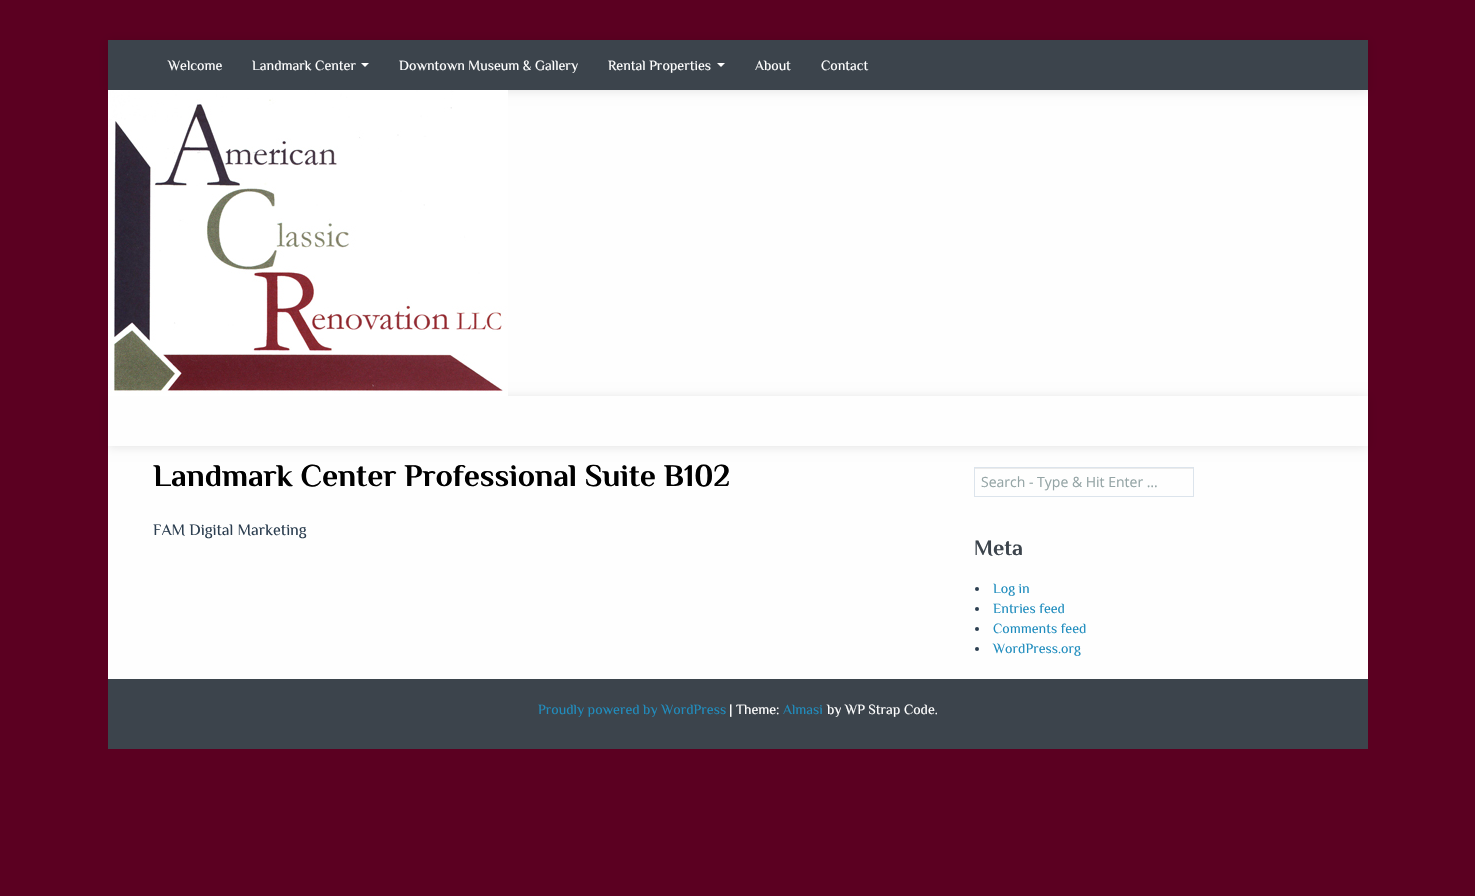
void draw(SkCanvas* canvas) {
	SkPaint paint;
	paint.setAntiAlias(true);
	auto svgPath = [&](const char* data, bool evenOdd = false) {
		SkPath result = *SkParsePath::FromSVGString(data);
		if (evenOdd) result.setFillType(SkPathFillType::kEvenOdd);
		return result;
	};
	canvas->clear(0xff5b0021);
	paint.setColor(0xfffefefe);
	canvas->drawRect(SkRect::MakeXYWH(108, 90, 1260, 589), paint);
	paint.setColor(0x1a000000);
	paint.setMaskFilter(SkMaskFilter::MakeBlur(kNormal_SkBlurStyle, 5));
	canvas->drawRect(SkRect::MakeXYWH(108, 41, 1260, 50), paint);
	paint.setMaskFilter(nullptr);
	paint.setColor(0xff3c444c);
	canvas->drawRect(SkRect::MakeXYWH(108, 40, 1260, 50), paint);
	SkFont f1(fontMgr->matchFamilyStyle("Philosopher", SkFontStyle::Normal()), 14);
	f1.setSubpixel(true);
	paint.setColor(0xffffffff);
	canvas->drawString("Welcome", 168, 70, f1, paint);
	canvas->drawString("Landmark Center", 252, 70, f1, paint);
	canvas->drawPath(svgPath("M361 63H369L365 67Z"), paint);
	canvas->drawString("Downtown Museum & Gallery", 399, 70, f1, paint);
	canvas->drawString("Rental Properties", 608, 70, f1, paint);
	canvas->drawPath(svgPath("M717 63H725L721 67Z"), paint);
	canvas->drawString("About", 755, 70, f1, paint);
	canvas->drawString("Contact", 821, 70, f1, paint);
	canvas->save();
	canvas->clipPath(svgPath("M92 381H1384V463H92ZM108 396H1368V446H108Z", true), true);
	paint.setColor(0x1a000000);
	paint.setMaskFilter(SkMaskFilter::MakeBlur(kNormal_SkBlurStyle, 5));
	canvas->drawRect(SkRect::MakeXYWH(108, 397, 1260, 50), paint);
	paint.setMaskFilter(nullptr);
	canvas->restore();
	canvas->drawImageRect(SkImages::DeferredFromEncodedData(SkData::MakeFromFileName("img1.png")), SkRect::MakeXYWH(108, 90, 400, 306), SkSamplingOptions());
	SkFont f2(fontMgr->matchFamilyStyle("Philosopher", SkFontStyle::Bold()), 31.5);
	f2.setSubpixel(true);
	paint.setColor(0xff000000);
	canvas->drawString("Landmark Center Professional Suite B102", 153, 486, f2, paint);
	SkFont f3(fontMgr->matchFamilyStyle("Philosopher", SkFontStyle::Normal()), 16);
	f3.setSubpixel(true);
	paint.setColor(0xff2c3e50);
	canvas->drawString("FAM Digital Marketing", 153, 535, f3, paint);
	paint.setColor(0xffebebeb);
	canvas->drawRect(SkRect::MakeXYWH(975, 468, 218, 1), paint);
	paint.setStroke(true);
	paint.setStrokeWidth(1);
	paint.setColor(0xffdce4ec);
	canvas->drawRect(SkRect::MakeXYWH(974.5, 467.5, 219, 29), paint);
	SkFont f4(fontMgr->matchFamilyStyle("Open Sans", SkFontStyle::Normal()), 14);
	f4.setSubpixel(true);
	paint.setStroke(false);
	paint.setColor(0xff95a5a6);
	canvas->drawString("Search - Type & Hit Enter …", 981, 487, f4, paint);
	SkFont f5(fontMgr->matchFamilyStyle("Philosopher", SkFontStyle::Bold()), 22);
	f5.setSubpixel(true);
	paint.setColor(0xff3c444c);
	canvas->drawString("Meta", 974, 555, f5, paint);
	paint.setColor(0xff2c3e50);
	canvas->drawCircle(977, 589, 2, paint);
	paint.setColor(0xff208dbe);
	canvas->drawString("Log in", 993, 593, f1, paint);
	paint.setColor(0xff2c3e50);
	canvas->drawCircle(977, 609, 2, paint);
	paint.setColor(0xff208dbe);
	canvas->drawString("Entries feed", 993, 613, f1, paint);
	paint.setColor(0xff2c3e50);
	canvas->drawCircle(977, 629, 2, paint);
	paint.setColor(0xff208dbe);
	canvas->drawString("Comments feed", 993, 633, f1, paint);
	paint.setColor(0xff2c3e50);
	canvas->drawCircle(977, 649, 2, paint);
	paint.setColor(0xff208dbe);
	canvas->drawString("WordPress.org", 993, 653, f1, paint);
	paint.setColor(0xff3c444c);
	canvas->drawRect(SkRect::MakeXYWH(108, 679, 1260, 70), paint);
	paint.setColor(0xff208dbe);
	canvas->drawString("Proudly powered by WordPress", 538, 714, f1, paint);
	paint.setColor(0xffffffff);
	canvas->drawString("| Theme:", 729, 714, f1, paint);
	paint.setColor(0xff208dbe);
	canvas->drawString("Almasi", 783, 714, f1, paint);
	paint.setColor(0xffffffff);
	canvas->drawString("by WP Strap Code.", 827, 714, f1, paint);
}
